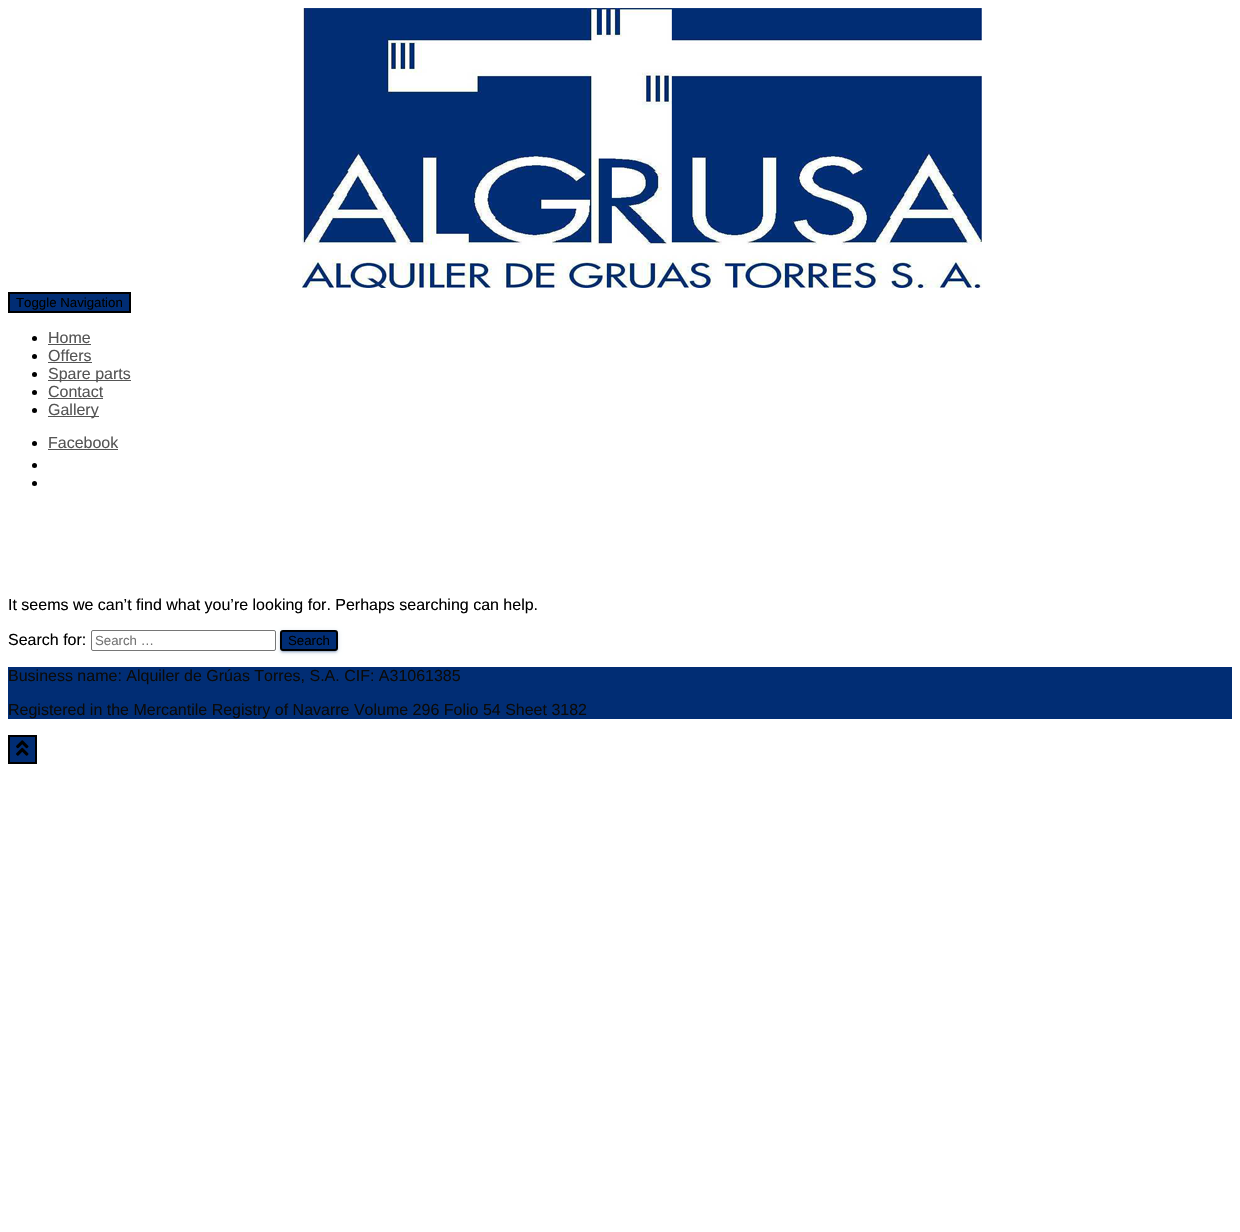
void draw(SkCanvas* canvas) {
	SkPaint paint;
	paint.setAntiAlias(true);
	canvas->clear(0xffffffff);
	canvas->drawImageRect(SkImages::DeferredFromEncodedData(SkData::MakeFromFileName("img1.png")), SkRect::MakeXYWH(302, 8, 680, 280), SkSamplingOptions());
	paint.setColor(0xff012d74);
	canvas->drawRect(SkRect::MakeXYWH(9, 293, 121, 19), paint);
	paint.setStroke(true);
	paint.setStrokeWidth(2);
	paint.setColor(0xff000000);
	canvas->drawRect(SkRect::MakeXYWH(9, 293, 121, 19), paint);
	SkFont f1(fontMgr->matchFamilyStyle("Liberation Sans", SkFontStyle::Normal()), 13.25);
	f1.setSubpixel(true);
	paint.setStroke(false);
	canvas->drawString("Toggle Navigation", 16, 307, f1, paint);
	canvas->drawCircle(34.5, 338.5, 2.5, paint);
	SkFont f2(fontMgr->matchFamilyStyle("Liberation Sans", SkFontStyle::Normal()), 16);
	f2.setSubpixel(true);
	paint.setColor(0xff555555);
	canvas->drawString("Home", 48, 343, f2, paint);
	canvas->drawRect(SkRect::MakeXYWH(48, 344, 43, 1), paint);
	paint.setColor(0xff000000);
	canvas->drawCircle(34.5, 356.5, 2.5, paint);
	paint.setColor(0xff555555);
	canvas->drawString("Offers", 48, 361, f2, paint);
	canvas->drawRect(SkRect::MakeXYWH(48, 362, 44, 1), paint);
	paint.setColor(0xff000000);
	canvas->drawCircle(34.5, 374.5, 2.5, paint);
	paint.setColor(0xff555555);
	canvas->drawRect(SkRect::MakeXYWH(48, 380, 83, 1), paint);
	canvas->drawString("Spare parts", 48, 379, f2, paint);
	paint.setColor(0xff000000);
	canvas->drawCircle(34.5, 392.5, 2.5, paint);
	paint.setColor(0xff555555);
	canvas->drawString("Contact", 48, 397, f2, paint);
	canvas->drawRect(SkRect::MakeXYWH(48, 398, 55, 1), paint);
	paint.setColor(0xff000000);
	canvas->drawCircle(34.5, 410.5, 2.5, paint);
	paint.setColor(0xff555555);
	canvas->drawRect(SkRect::MakeXYWH(48, 416, 51, 1), paint);
	canvas->drawString("Gallery", 48, 415, f2, paint);
	paint.setColor(0xff000000);
	canvas->drawCircle(34.5, 443.5, 2.5, paint);
	paint.setColor(0xff555555);
	canvas->drawString("Facebook", 48, 448, f2, paint);
	canvas->drawRect(SkRect::MakeXYWH(48, 449, 70, 1), paint);
	paint.setColor(0xff000000);
	canvas->drawCircle(34.5, 465.5, 2.5, paint);
	canvas->drawCircle(34.5, 483.5, 2.5, paint);
	canvas->drawString("It seems we can’t find what you’re looking for. Perhaps searching can help.", 8, 610, f2, paint);
	canvas->drawString("Search for:", 8, 645, f2, paint);
	paint.setStroke(true);
	paint.setStrokeWidth(1);
	paint.setColor(0xff767676);
	canvas->drawRoundRect(SkRect::MakeXYWH(91.5, 630.5, 184, 20), 1.5, 1.5, paint);
	paint.setStroke(false);
	paint.setColor(0xff757575);
	canvas->drawString("Search …", 95, 645, f1, paint);
	paint.setColor(0x1f012d74);
	paint.setMaskFilter(SkMaskFilter::MakeBlur(kNormal_SkBlurStyle, 2.5));
	canvas->drawRoundRect(SkRect::MakeXYWH(280, 631, 58, 21), 3, 3, paint);
	paint.setMaskFilter(nullptr);
	paint.setColor(0x33012d74);
	paint.setMaskFilter(SkMaskFilter::MakeBlur(kNormal_SkBlurStyle, 0.5));
	canvas->drawRoundRect(SkRect::MakeXYWH(282, 635, 54, 17), 1, 1, paint);
	paint.setMaskFilter(nullptr);
	paint.setColor(0x24012d74);
	paint.setMaskFilter(SkMaskFilter::MakeBlur(kNormal_SkBlurStyle, 1));
	canvas->drawRoundRect(SkRect::MakeXYWH(280, 632, 58, 21), 3, 3, paint);
	paint.setMaskFilter(nullptr);
	paint.setColor(0xff012d74);
	canvas->drawRoundRect(SkRect::MakeXYWH(281, 631, 56, 19), 2, 2, paint);
	paint.setStroke(true);
	paint.setStrokeWidth(2);
	paint.setColor(0xff000000);
	canvas->drawRoundRect(SkRect::MakeXYWH(281, 631, 56, 19), 2, 2, paint);
	paint.setStroke(false);
	canvas->drawString("Search", 288, 645, f1, paint);
	paint.setColor(0xff012d74);
	canvas->drawRect(SkRect::MakeXYWH(8, 667, 1224, 52), paint);
	paint.setColor(0xff0a0a0a);
	canvas->drawString("Business name: Alquiler de Grúas Torres, S.A. CIF: A31061385", 8, 681, f2, paint);
	canvas->drawString("Registered in the Mercantile Registry of Navarre Volume 296 Folio 54 Sheet 3182", 8, 715, f2, paint);
	paint.setColor(0xff012d74);
	canvas->drawRect(SkRect::MakeXYWH(9, 736, 27, 27), paint);
	paint.setStroke(true);
	paint.setColor(0xff000000);
	canvas->drawRect(SkRect::MakeXYWH(9, 736, 27, 27), paint);
	canvas->drawImageRect(SkImages::DeferredFromEncodedData(SkData::MakeFromFileName("img2.png")), SkRect::MakeXYWH(16, 740, 13, 16), SkSamplingOptions());
}
